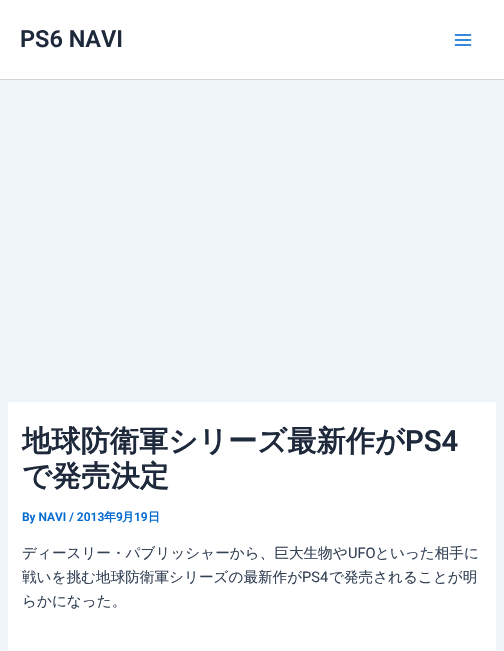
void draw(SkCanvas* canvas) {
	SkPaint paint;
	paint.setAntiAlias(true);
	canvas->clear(0xfff0f5fa);
	paint.setColor(0xffffffff);
	canvas->drawRect(SkRect::MakeXYWH(0, 0, 504, 79), paint);
	paint.setColor(0xffd1d5db);
	canvas->drawRect(SkRect::MakeXYWH(0, 79, 504, 1), paint);
	SkFont f1(fontMgr->matchFamilyStyle("Roboto", SkFontStyle(600, SkFontStyle::kNormal_Width, SkFontStyle::kUpright_Slant)), 23.5);
	f1.setSubpixel(true);
	paint.setColor(0xff1e293b);
	canvas->drawString("PS6 NAVI", 20, 47, f1, paint);
	canvas->drawImageRect(SkImages::DeferredFromEncodedData(SkData::MakeFromFileName("img1.png")), SkRect::MakeXYWH(454, 34, 18, 12), SkSamplingOptions());
	paint.setColor(0xffffffff);
	canvas->drawRect(SkRect::MakeXYWH(8, 402, 488, 249), paint);
	SkFont f2(fontMgr->matchFamilyStyle("WenQuanYi Zen Hei", SkFontStyle::Bold()), 29.25);
	f2.setSubpixel(true);
	paint.setColor(0xff1e293b);
	canvas->drawString("地球防衛軍シリーズ最新作が", 22, 451, f2, paint);
	SkFont f3(fontMgr->matchFamilyStyle("Roboto", SkFontStyle(600, SkFontStyle::kNormal_Width, SkFontStyle::kUpright_Slant)), 29.25);
	f3.setSubpixel(true);
	canvas->drawString("PS4", 405, 451, f3, paint);
	canvas->drawString("で発売決定", 22, 486, f2, paint);
	SkFont f4(fontMgr->matchFamilyStyle("Roboto", SkFontStyle(600, SkFontStyle::kNormal_Width, SkFontStyle::kUpright_Slant)), 12);
	f4.setSubpixel(true);
	paint.setColor(0xff046bd2);
	canvas->drawString("By NAVI / 2013", 22, 521, f4, paint);
	SkFont f5(fontMgr->matchFamilyStyle("WenQuanYi Zen Hei", SkFontStyle::Bold()), 12);
	f5.setSubpixel(true);
	canvas->drawString("年", 104, 521, f5, paint);
	canvas->drawString("9", 116, 521, f4, paint);
	canvas->drawString("月", 122, 521, f5, paint);
	canvas->drawString("19", 134, 521, f4, paint);
	canvas->drawString("日", 148, 521, f5, paint);
	SkFont f6(fontMgr->matchFamilyStyle("WenQuanYi Zen Hei", SkFontStyle(500, SkFontStyle::kNormal_Width, SkFontStyle::kUpright_Slant)), 14.6);
	f6.setSubpixel(true);
	paint.setColor(0xff334155);
	canvas->drawString("ディースリー・パブリッシャーから、巨大生物や", 22, 558, f6, paint);
	SkFont f7(fontMgr->matchFamilyStyle("Roboto", SkFontStyle::Normal()), 14.6);
	f7.setSubpixel(true);
	canvas->drawString("UFO", 348, 558, f7, paint);
	canvas->drawString("といった相手に", 375, 558, f6, paint);
	canvas->drawString("戦いを挑む地球防衛軍シリーズの最新作が", 22, 582, f6, paint);
	canvas->drawString("PS4", 302, 582, f7, paint);
	canvas->drawString("で発売されることが明", 329, 582, f6, paint);
	canvas->drawString("らかになった。", 22, 606, f6, paint);
}
